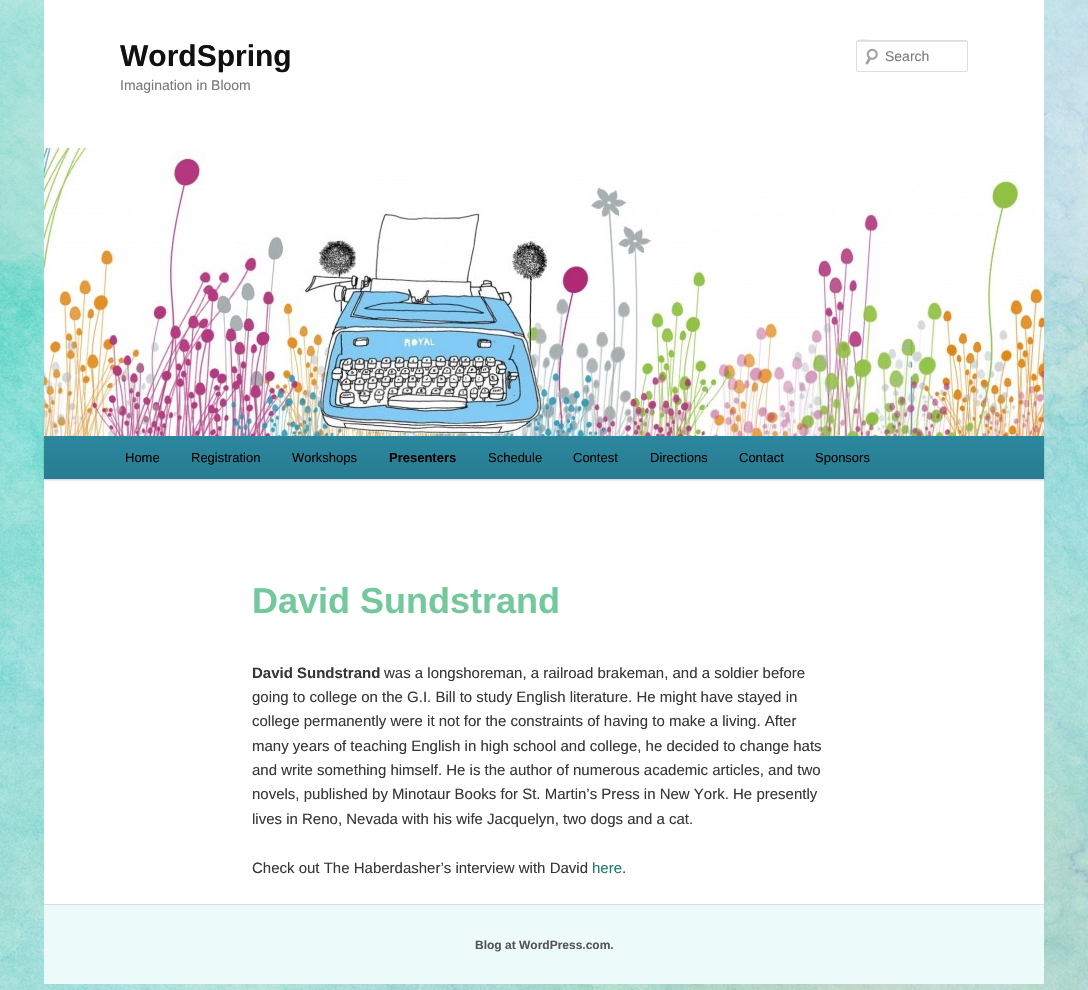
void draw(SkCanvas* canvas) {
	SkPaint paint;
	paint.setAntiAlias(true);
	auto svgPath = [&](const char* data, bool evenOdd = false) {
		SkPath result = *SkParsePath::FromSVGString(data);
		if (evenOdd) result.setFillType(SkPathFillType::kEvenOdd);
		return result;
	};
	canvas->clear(0xffffffff);
	canvas->drawImageRect(SkImages::DeferredFromEncodedData(SkData::MakeFromFileName("img1.png")), SkRect::MakeXYWH(0, 0, 1088, 990), SkSamplingOptions());
	paint.setColor(0xffffffff);
	canvas->drawRect(SkRect::MakeXYWH(44, 0, 1000, 904), paint);
	SkFont f1(fontMgr->matchFamilyStyle("Liberation Sans", SkFontStyle::Bold()), 30);
	f1.setSubpixel(true);
	paint.setColor(0xff111111);
	canvas->drawString("WordSpring", 120, 66, f1, paint);
	SkFont f2(fontMgr->matchFamilyStyle("Liberation Sans", SkFontStyle::Normal()), 14);
	f2.setSubpixel(true);
	paint.setColor(0xff7a7a7a);
	canvas->drawString("Imagination in Bloom", 120, 90, f2, paint);
	canvas->drawImageRect(SkImages::DeferredFromEncodedData(SkData::MakeFromFileName("img2.png")), SkRect::MakeXYWH(865, 48, 13, 17), SkSamplingOptions());
	paint.setColor(0xffe6e6e6);
	canvas->drawPath(svgPath("M858 42H967V43L966 41H876C872 41 857 36 857 43C857 42 857 42 858 42Z"), paint);
	paint.setStroke(true);
	paint.setStrokeWidth(1);
	paint.setColor(0xffdddddd);
	canvas->drawRoundRect(SkRect::MakeXYWH(856.5, 40.5, 111, 31), 1.5, 1.5, paint);
	paint.setStroke(false);
	paint.setColor(0xff7a7a7a);
	canvas->drawString("Search", 885, 61, f2, paint);
	paint.setColor(0x33000000);
	paint.setMaskFilter(SkMaskFilter::MakeBlur(kNormal_SkBlurStyle, 1));
	canvas->drawRect(SkRect::MakeXYWH(44, 437, 1000, 43), paint);
	paint.setMaskFilter(nullptr);
	canvas->drawImageRect(SkImages::DeferredFromEncodedData(SkData::MakeFromFileName("img3.png")), SkRect::MakeXYWH(44, 148, 1000, 288), SkSamplingOptions());
	{
		const SkColor colors[] = {0xff2b879e, 0xff287c91};
		const float stops[] = {0, 1};
		const SkPoint ends[] = {{544, 436}, {544, 479}};
		paint.setShader(SkGradientShader::MakeLinear(ends, colors, stops, 2, SkTileMode::kClamp));
		paint.setAlpha(255);
	}
	canvas->drawRect(SkRect::MakeXYWH(44, 436, 1000, 43), paint);
	SkFont f3(fontMgr->matchFamilyStyle("Liberation Sans", SkFontStyle::Normal()), 13);
	f3.setSubpixel(true);
	paint.setShader(nullptr);
	paint.setColor(0xff020202);
	canvas->drawString("Home", 125, 462, f3, paint);
	canvas->drawString("Registration", 191, 462, f3, paint);
	canvas->drawString("Workshops", 292, 462, f3, paint);
	SkFont f4(fontMgr->matchFamilyStyle("Liberation Sans", SkFontStyle::Bold()), 13);
	f4.setSubpixel(true);
	canvas->drawString("Presenters", 389, 462, f4, paint);
	canvas->drawString("Schedule", 488, 462, f3, paint);
	canvas->drawString("Contest", 573, 462, f3, paint);
	canvas->drawString("Directions", 650, 462, f3, paint);
	canvas->drawString("Contact", 739, 462, f3, paint);
	canvas->drawString("Sponsors", 815, 462, f3, paint);
	SkFont f5(fontMgr->matchFamilyStyle("Liberation Sans", SkFontStyle::Bold()), 36);
	f5.setSubpixel(true);
	paint.setColor(0xff73c89c);
	canvas->drawString("David Sundstrand", 252, 613, f5, paint);
	SkFont f6(fontMgr->matchFamilyStyle("Liberation Sans", SkFontStyle::Bold()), 15);
	f6.setSubpixel(true);
	paint.setColor(0xff373737);
	canvas->drawString("David Sundstrand", 252, 678, f6, paint);
	SkFont f7(fontMgr->matchFamilyStyle("Liberation Sans", SkFontStyle::Normal()), 15);
	f7.setSubpixel(true);
	canvas->drawString("was a longshoreman, a railroad brakeman, and a soldier before", 384, 678, f7, paint);
	canvas->drawString("going to college on the G.I. Bill to study English literature. He might have stayed in", 252, 702, f7, paint);
	canvas->drawString("college permanently were it not for the constraints of having to make a living. After", 252, 726, f7, paint);
	canvas->drawString("many years of teaching English in high school and college, he decided to change hats", 252, 751, f7, paint);
	canvas->drawString("and write something himself. He is the author of numerous academic articles, and two", 252, 775, f7, paint);
	canvas->drawString("novels, published by Minotaur Books for St. Martin’s Press in New York. He presently", 252, 799, f7, paint);
	canvas->drawString("lives in Reno, Nevada with his wife Jacquelyn, two dogs and a cat.", 252, 824, f7, paint);
	canvas->drawString("Check out The Haberdasher’s interview with David", 252, 873, f7, paint);
	paint.setColor(0xff1d7b63);
	canvas->drawString("here", 592, 873, f7, paint);
	paint.setColor(0xff373737);
	canvas->drawString(".", 622, 873, f7, paint);
	paint.setColor(0xffecfbf9);
	canvas->drawRect(SkRect::MakeXYWH(44, 905, 1000, 79), paint);
	paint.setColor(0xffd4e2e0);
	canvas->drawRect(SkRect::MakeXYWH(44, 904, 1000, 1), paint);
	SkFont f8(fontMgr->matchFamilyStyle("Liberation Sans", SkFontStyle::Bold()), 12);
	f8.setSubpixel(true);
	paint.setColor(0xff555555);
	canvas->drawString("Blog at WordPress.com.", 475, 949, f8, paint);
}
